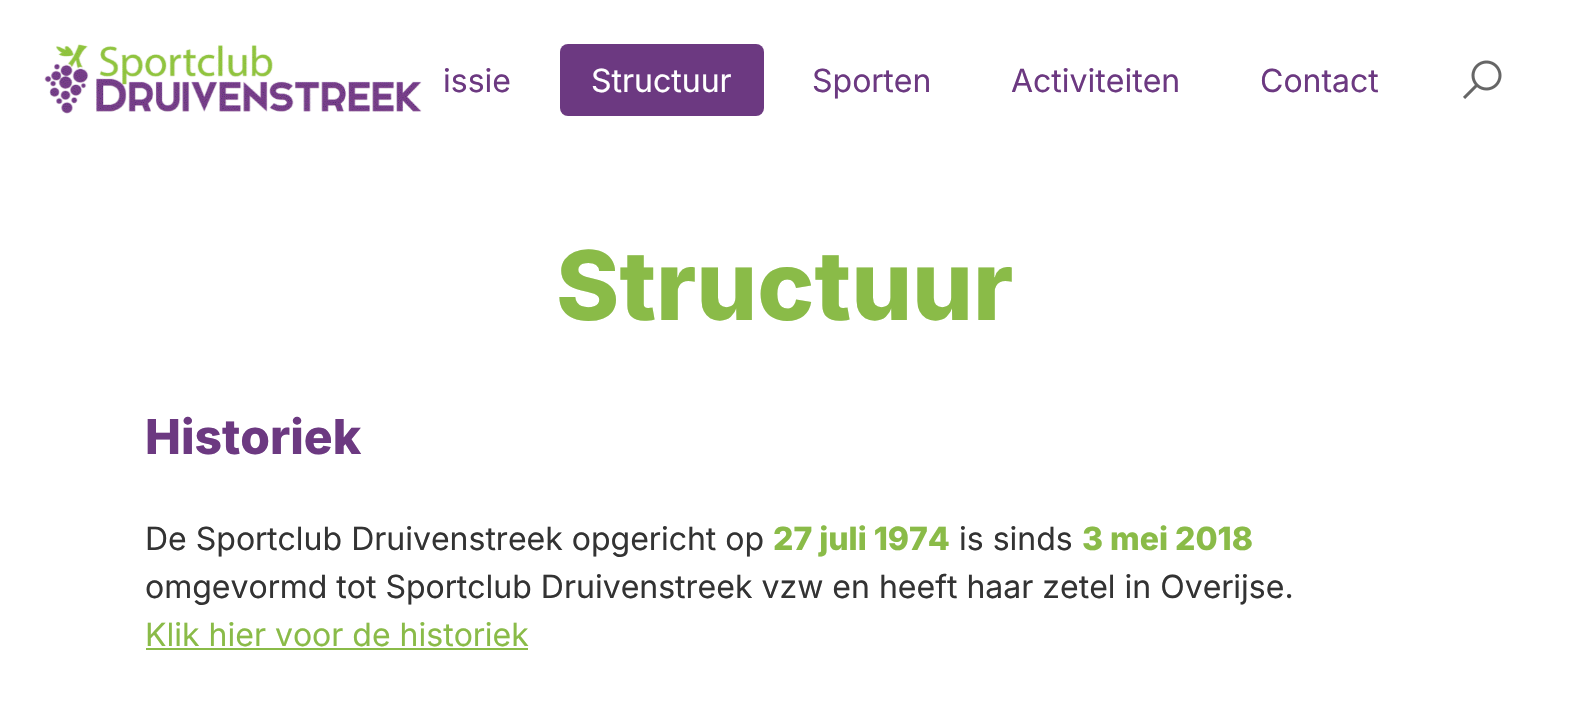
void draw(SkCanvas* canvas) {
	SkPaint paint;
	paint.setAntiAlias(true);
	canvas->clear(0xffffffff);
	canvas->drawImageRect(SkImages::DeferredFromEncodedData(SkData::MakeFromFileName("img1.png")), SkRect::MakeXYWH(44, 44, 378, 70), SkSamplingOptions());
	SkFont f1(fontMgr->matchFamilyStyle("Inter", SkFontStyle::Normal()), 32);
	f1.setSubpixel(true);
	paint.setColor(0xff6c3981);
	canvas->drawString("issie", 443, 92, f1, paint);
	canvas->drawRoundRect(SkRect::MakeXYWH(560, 44, 204, 72), 8, 8, paint);
	paint.setColor(0xffffffff);
	canvas->drawString("Structuur", 591, 92, f1, paint);
	paint.setColor(0xff6c3981);
	canvas->drawString("Sporten", 812, 92, f1, paint);
	canvas->drawString("Activiteiten", 1011, 92, f1, paint);
	canvas->drawString("Contact", 1260, 92, f1, paint);
	canvas->drawImageRect(SkImages::DeferredFromEncodedData(SkData::MakeFromFileName("img2.png")), SkRect::MakeXYWH(1463, 60, 39, 39), SkSamplingOptions());
	SkFont f2(fontMgr->matchFamilyStyle("Inter", SkFontStyle(800, SkFontStyle::kNormal_Width, SkFontStyle::kUpright_Slant)), 96);
	f2.setSubpixel(true);
	paint.setColor(0xff8abb48);
	canvas->drawString("Structuur", 556, 320, f2, paint);
	SkFont f3(fontMgr->matchFamilyStyle("Inter", SkFontStyle(800, SkFontStyle::kNormal_Width, SkFontStyle::kUpright_Slant)), 48);
	f3.setSubpixel(true);
	paint.setColor(0xff6c3981);
	canvas->drawString("Historiek", 145, 454, f3, paint);
	paint.setColor(0xff333333);
	canvas->drawString("De Sportclub Druivenstreek opgericht op", 145, 550, f1, paint);
	SkFont f4(fontMgr->matchFamilyStyle("Inter", SkFontStyle(800, SkFontStyle::kNormal_Width, SkFontStyle::kUpright_Slant)), 32);
	f4.setSubpixel(true);
	paint.setColor(0xff8abb48);
	canvas->drawString("27 juli 1974", 773, 550, f4, paint);
	paint.setColor(0xff333333);
	canvas->drawString("is sinds", 959, 550, f1, paint);
	paint.setColor(0xff8abb48);
	canvas->drawString("3 mei 2018", 1082, 550, f4, paint);
	paint.setColor(0xff333333);
	canvas->drawString("omgevormd tot Sportclub Druivenstreek vzw en heeft haar zetel in Overijse.", 145, 598, f1, paint);
	paint.setColor(0xff8abb48);
	canvas->drawString("Klik hier voor de historiek", 145, 646, f1, paint);
	canvas->drawRect(SkRect::MakeXYWH(146, 648, 382, 2), paint);
}
